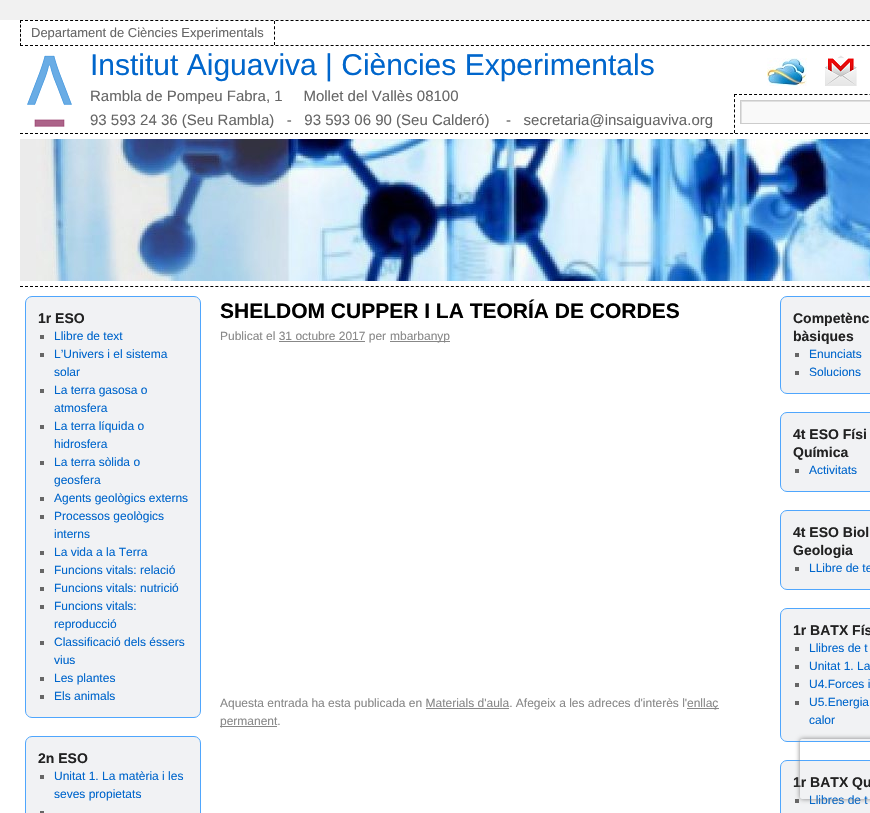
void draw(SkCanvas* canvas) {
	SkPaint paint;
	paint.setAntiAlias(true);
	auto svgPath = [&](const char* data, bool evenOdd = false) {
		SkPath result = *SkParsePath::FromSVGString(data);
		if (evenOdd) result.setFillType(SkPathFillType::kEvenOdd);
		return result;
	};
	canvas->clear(0xfff1f1f1);
	paint.setColor(0xffffffff);
	canvas->drawRect(SkRect::MakeXYWH(0, 20, 870, 793), paint);
	paint.setStroke(true);
	paint.setStrokeWidth(1);
	paint.setColor(0xff000000);
	paint.setPathEffect(SkDashPathEffect::Make({{3, 2.01f}}, 0));
	canvas->drawPath(svgPath("M20 20.5H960"), paint);
	paint.setPathEffect(nullptr);
	paint.setPathEffect(SkDashPathEffect::Make({{3, 2.01f}}, 0));
	canvas->drawPath(svgPath("M20 45.5H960"), paint);
	paint.setPathEffect(nullptr);
	paint.setPathEffect(SkDashPathEffect::Make({{3, 1.6f}}, 0));
	canvas->drawPath(svgPath("M20.5 20V46"), paint);
	paint.setPathEffect(nullptr);
	paint.setPathEffect(SkDashPathEffect::Make({{3, 2.25f}}, 0));
	canvas->drawPath(svgPath("M274.5 21V45"), paint);
	paint.setPathEffect(nullptr);
	SkFont f1(fontMgr->matchFamilyStyle("Liberation Sans", SkFontStyle::Normal()), 13);
	f1.setSubpixel(true);
	paint.setStroke(false);
	paint.setColor(0xff666666);
	canvas->drawString("Departament de Ciències Experimentals", 31, 37, f1, paint);
	paint.setStroke(true);
	paint.setColor(0xff000000);
	paint.setPathEffect(SkDashPathEffect::Make({{3, 2}}, 0));
	canvas->drawPath(svgPath("M20 133.5H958"), paint);
	paint.setPathEffect(nullptr);
	canvas->drawImageRect(SkImages::DeferredFromEncodedData(SkData::MakeFromFileName("img1.png")), SkRect::MakeXYWH(27, 55, 45, 72), SkSamplingOptions());
	SkFont f2(fontMgr->matchFamilyStyle("Liberation Sans", SkFontStyle::Normal()), 30);
	f2.setSubpixel(true);
	paint.setStroke(false);
	paint.setColor(0xff0066cc);
	canvas->drawString("Institut Aiguaviva | Ciències Experimentals", 90, 75, f2, paint);
	SkFont f3(fontMgr->matchFamilyStyle("Liberation Sans", SkFontStyle::Normal()), 15);
	f3.setSubpixel(true);
	paint.setColor(0xff666666);
	canvas->drawString("Rambla de Pompeu Fabra, 1     Mollet del Vallès 08100", 90, 101, f3, paint);
	canvas->drawString("93 593 24 36 (Seu Rambla)   -   93 593 06 90 (Seu Calderó)    -   secretaria@insaiguaviva.org", 90, 125, f3, paint);
	canvas->drawImageRect(SkImages::DeferredFromEncodedData(SkData::MakeFromFileName("img2.png")), SkRect::MakeXYWH(767, 58, 40, 28), SkSamplingOptions());
	canvas->drawImageRect(SkImages::DeferredFromEncodedData(SkData::MakeFromFileName("img3.png")), SkRect::MakeXYWH(825, 55, 32, 31), SkSamplingOptions());
	paint.setStroke(true);
	paint.setColor(0xff000000);
	paint.setPathEffect(SkDashPathEffect::Make({{3, 2.02f}}, 0));
	canvas->drawPath(svgPath("M734 94.5H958"), paint);
	paint.setPathEffect(nullptr);
	paint.setPathEffect(SkDashPathEffect::Make({{3, 2.14f}}, 0));
	canvas->drawPath(svgPath("M734.5 94V133"), paint);
	paint.setPathEffect(nullptr);
	paint.setStroke(false);
	paint.setColor(0xfff9f9f9);
	canvas->drawRect(SkRect::MakeXYWH(742, 102, 128, 21), paint);
	canvas->save();
	canvas->clipRect(SkRect::MakeXYWH(741, 101, 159, 22));
	paint.setColor(0xffe0e0e0);
	canvas->drawPath(svgPath("M642 2H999V222H642ZM742 102H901V124H742Z", true), paint);
	canvas->restore();
	paint.setStroke(true);
	paint.setColor(0xffcccccc);
	canvas->drawRect(SkRect::MakeXYWH(740.5, 100.5, 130, 23), paint);
	canvas->drawImageRect(SkImages::DeferredFromEncodedData(SkData::MakeFromFileName("img4.png")), SkRect::MakeXYWH(20, 139, 850, 142), SkSamplingOptions());
	paint.setStroke(false);
	paint.setColor(0xfff1f2f4);
	canvas->drawRoundRect(SkRect::MakeXYWH(25.5, 296.5, 175, 421), 6.5, 6.5, paint);
	paint.setStroke(true);
	paint.setColor(0xff4fa6fd);
	canvas->drawRoundRect(SkRect::MakeXYWH(25.5, 296.5, 175, 421), 6.5, 6.5, paint);
	SkFont f4(fontMgr->matchFamilyStyle("Liberation Sans", SkFontStyle::Bold()), 14);
	f4.setSubpixel(true);
	paint.setStroke(false);
	paint.setColor(0xff222222);
	canvas->drawString("1r ESO", 38, 323, f4, paint);
	paint.setColor(0xff666666);
	canvas->drawRect(SkRect::MakeXYWH(40, 335, 4, 4), paint);
	SkFont f5(fontMgr->matchFamilyStyle("Liberation Sans", SkFontStyle::Normal()), 12);
	f5.setSubpixel(true);
	paint.setColor(0xff0066cc);
	canvas->drawString("Llibre de text", 54, 340, f5, paint);
	paint.setColor(0xff666666);
	canvas->drawRect(SkRect::MakeXYWH(40, 353, 4, 4), paint);
	paint.setColor(0xff0066cc);
	canvas->drawString("L’Univers i el sistema", 54, 358, f5, paint);
	canvas->drawString("solar", 54, 376, f5, paint);
	paint.setColor(0xff666666);
	canvas->drawRect(SkRect::MakeXYWH(40, 389, 4, 4), paint);
	paint.setColor(0xff0066cc);
	canvas->drawString("La terra gasosa o", 54, 394, f5, paint);
	canvas->drawString("atmosfera", 54, 412, f5, paint);
	paint.setColor(0xff666666);
	canvas->drawRect(SkRect::MakeXYWH(40, 425, 4, 4), paint);
	paint.setColor(0xff0066cc);
	canvas->drawString("La terra líquida o", 54, 430, f5, paint);
	canvas->drawString("hidrosfera", 54, 448, f5, paint);
	paint.setColor(0xff666666);
	canvas->drawRect(SkRect::MakeXYWH(40, 461, 4, 4), paint);
	paint.setColor(0xff0066cc);
	canvas->drawString("La terra sòlida o", 54, 466, f5, paint);
	canvas->drawString("geosfera", 54, 484, f5, paint);
	paint.setColor(0xff666666);
	canvas->drawRect(SkRect::MakeXYWH(40, 497, 4, 4), paint);
	paint.setColor(0xff0066cc);
	canvas->drawString("Agents geològics externs", 54, 502, f5, paint);
	paint.setColor(0xff666666);
	canvas->drawRect(SkRect::MakeXYWH(40, 515, 4, 4), paint);
	paint.setColor(0xff0066cc);
	canvas->drawString("Processos geològics", 54, 520, f5, paint);
	canvas->drawString("interns", 54, 538, f5, paint);
	paint.setColor(0xff666666);
	canvas->drawRect(SkRect::MakeXYWH(40, 551, 4, 4), paint);
	paint.setColor(0xff0066cc);
	canvas->drawString("La vida a la Terra", 54, 556, f5, paint);
	paint.setColor(0xff666666);
	canvas->drawRect(SkRect::MakeXYWH(40, 569, 4, 4), paint);
	paint.setColor(0xff0066cc);
	canvas->drawString("Funcions vitals: relació", 54, 574, f5, paint);
	paint.setColor(0xff666666);
	canvas->drawRect(SkRect::MakeXYWH(40, 587, 4, 4), paint);
	paint.setColor(0xff0066cc);
	canvas->drawString("Funcions vitals: nutrició", 54, 592, f5, paint);
	paint.setColor(0xff666666);
	canvas->drawRect(SkRect::MakeXYWH(40, 605, 4, 4), paint);
	paint.setColor(0xff0066cc);
	canvas->drawString("Funcions vitals:", 54, 610, f5, paint);
	canvas->drawString("reproducció", 54, 628, f5, paint);
	paint.setColor(0xff666666);
	canvas->drawRect(SkRect::MakeXYWH(40, 641, 4, 4), paint);
	paint.setColor(0xff0066cc);
	canvas->drawString("Classificació dels éssers", 54, 646, f5, paint);
	canvas->drawString("vius", 54, 664, f5, paint);
	paint.setColor(0xff666666);
	canvas->drawRect(SkRect::MakeXYWH(40, 677, 4, 4), paint);
	paint.setColor(0xff0066cc);
	canvas->drawString("Les plantes", 54, 682, f5, paint);
	paint.setColor(0xff666666);
	canvas->drawRect(SkRect::MakeXYWH(40, 695, 4, 4), paint);
	paint.setColor(0xff0066cc);
	canvas->drawString("Els animals", 54, 700, f5, paint);
	paint.setColor(0xfff1f2f4);
	canvas->drawRoundRect(SkRect::MakeXYWH(25.5, 736.5, 175, 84), 6.5, 6.5, paint);
	paint.setStroke(true);
	paint.setColor(0xff4fa6fd);
	canvas->drawRoundRect(SkRect::MakeXYWH(25.5, 736.5, 175, 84), 6.5, 6.5, paint);
	paint.setStroke(false);
	paint.setColor(0xff222222);
	canvas->drawString("2n ESO", 38, 763, f4, paint);
	paint.setColor(0xff666666);
	canvas->drawRect(SkRect::MakeXYWH(40, 775, 4, 4), paint);
	paint.setColor(0xff0066cc);
	canvas->drawString("Unitat 1. La matèria i les", 54, 780, f5, paint);
	canvas->drawString("seves propietats", 54, 798, f5, paint);
	paint.setColor(0xff666666);
	canvas->drawRect(SkRect::MakeXYWH(40, 811, 4, 2), paint);
	paint.setStroke(true);
	paint.setColor(0xff000000);
	paint.setPathEffect(SkDashPathEffect::Make({{3, 2.01f}}, 0));
	canvas->drawPath(svgPath("M20 286.5H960"), paint);
	paint.setPathEffect(nullptr);
	SkFont f6(fontMgr->matchFamilyStyle("Liberation Sans", SkFontStyle::Bold()), 21);
	f6.setSubpixel(true);
	paint.setStroke(false);
	canvas->drawString("SHELDOM CUPPER I LA TEORÍA DE CORDES", 220, 318, f6, paint);
	paint.setColor(0xff888888);
	canvas->drawString("Publicat el 31 octubre 2017 per", 220, 340, f5, paint);
	canvas->drawRect(SkRect::MakeXYWH(390, 341, 60, 1), paint);
	canvas->drawString("mbarbanyp", 390, 340, f5, paint);
	canvas->drawRect(SkRect::MakeXYWH(279, 341, 86, 1), paint);
	canvas->drawString("Aquesta entrada ha esta publicada en Materials d'aula. Afegeix a les adreces d'interès l'", 220, 707, f5, paint);
	canvas->drawRect(SkRect::MakeXYWH(687, 708, 32, 1), paint);
	canvas->drawString("enllaç", 687, 707, f5, paint);
	canvas->drawRect(SkRect::MakeXYWH(426, 708, 83, 1), paint);
	canvas->drawRect(SkRect::MakeXYWH(220, 726, 57, 1), paint);
	canvas->drawString("permanent.", 220, 725, f5, paint);
	paint.setColor(0xfff1f2f4);
	canvas->drawRoundRect(SkRect::MakeXYWH(780.5, 296.5, 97, 97), 6.5, 6.5, paint);
	paint.setStroke(true);
	paint.setColor(0xff4fa6fd);
	canvas->drawRoundRect(SkRect::MakeXYWH(780.5, 296.5, 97, 97), 6.5, 6.5, paint);
	paint.setStroke(false);
	paint.setColor(0xff222222);
	canvas->drawString("Competènc", 793, 323, f4, paint);
	canvas->drawString("bàsiques", 793, 341, f4, paint);
	paint.setColor(0xff666666);
	canvas->drawRect(SkRect::MakeXYWH(795, 353, 4, 4), paint);
	paint.setColor(0xff0066cc);
	canvas->drawString("Enunciats", 809, 358, f5, paint);
	paint.setColor(0xff666666);
	canvas->drawRect(SkRect::MakeXYWH(795, 371, 4, 4), paint);
	paint.setColor(0xff0066cc);
	canvas->drawString("Solucions", 809, 376, f5, paint);
	paint.setColor(0xfff1f2f4);
	canvas->drawRoundRect(SkRect::MakeXYWH(780.5, 412.5, 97, 79), 6.5, 6.5, paint);
	paint.setStroke(true);
	paint.setColor(0xff4fa6fd);
	canvas->drawRoundRect(SkRect::MakeXYWH(780.5, 412.5, 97, 79), 6.5, 6.5, paint);
	paint.setStroke(false);
	paint.setColor(0xff222222);
	canvas->drawString("4t ESO Físi", 793, 439, f4, paint);
	canvas->drawString("Química", 793, 457, f4, paint);
	paint.setColor(0xff666666);
	canvas->drawRect(SkRect::MakeXYWH(795, 469, 4, 4), paint);
	paint.setColor(0xff0066cc);
	canvas->drawString("Activitats", 809, 474, f5, paint);
	paint.setColor(0xfff1f2f4);
	canvas->drawRoundRect(SkRect::MakeXYWH(780.5, 510.5, 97, 79), 6.5, 6.5, paint);
	paint.setStroke(true);
	paint.setColor(0xff4fa6fd);
	canvas->drawRoundRect(SkRect::MakeXYWH(780.5, 510.5, 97, 79), 6.5, 6.5, paint);
	paint.setStroke(false);
	paint.setColor(0xff222222);
	canvas->drawString("4t ESO Biol", 793, 537, f4, paint);
	canvas->drawString("Geologia", 793, 555, f4, paint);
	paint.setColor(0xff666666);
	canvas->drawRect(SkRect::MakeXYWH(795, 567, 4, 4), paint);
	paint.setColor(0xff0066cc);
	canvas->drawString("LLibre de te", 809, 572, f5, paint);
	paint.setColor(0xfff1f2f4);
	canvas->drawRoundRect(SkRect::MakeXYWH(780.5, 608.5, 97, 133), 6.5, 6.5, paint);
	paint.setStroke(true);
	paint.setColor(0xff4fa6fd);
	canvas->drawRoundRect(SkRect::MakeXYWH(780.5, 608.5, 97, 133), 6.5, 6.5, paint);
	paint.setStroke(false);
	paint.setColor(0xff222222);
	canvas->drawString("1r BATX Fís", 793, 635, f4, paint);
	paint.setColor(0xff666666);
	canvas->drawRect(SkRect::MakeXYWH(795, 647, 4, 4), paint);
	paint.setColor(0xff0066cc);
	canvas->drawString("Llibres de t", 809, 652, f5, paint);
	paint.setColor(0xff666666);
	canvas->drawRect(SkRect::MakeXYWH(795, 665, 4, 4), paint);
	paint.setColor(0xff0066cc);
	canvas->drawString("Unitat 1. La", 809, 670, f5, paint);
	paint.setColor(0xff666666);
	canvas->drawRect(SkRect::MakeXYWH(795, 683, 4, 4), paint);
	paint.setColor(0xff0066cc);
	canvas->drawString("U4.Forces i", 809, 688, f5, paint);
	paint.setColor(0xff666666);
	canvas->drawRect(SkRect::MakeXYWH(795, 701, 4, 4), paint);
	paint.setColor(0xff0066cc);
	canvas->drawString("U5.Energia", 809, 706, f5, paint);
	canvas->drawString("calor", 809, 724, f5, paint);
	paint.setColor(0xfff1f2f4);
	canvas->drawRoundRect(SkRect::MakeXYWH(780.5, 760.5, 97, 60), 6.5, 6.5, paint);
	paint.setStroke(true);
	paint.setColor(0xff4fa6fd);
	canvas->drawRoundRect(SkRect::MakeXYWH(780.5, 760.5, 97, 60), 6.5, 6.5, paint);
	paint.setStroke(false);
	paint.setColor(0xff222222);
	canvas->drawString("1r BATX Qu", 793, 787, f4, paint);
	paint.setColor(0xff666666);
	canvas->drawRect(SkRect::MakeXYWH(795, 799, 4, 4), paint);
	paint.setColor(0xff0066cc);
	canvas->drawString("Llibres de t", 809, 804, f5, paint);
	canvas->save();
	canvas->clipPath(svgPath("M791 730H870V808H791ZM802 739H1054C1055 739 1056 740 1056 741V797C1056 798 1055 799 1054 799H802C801 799 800 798 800 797V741C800 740 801 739 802 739Z", true), true);
	paint.setColor(0xff808080);
	paint.setMaskFilter(SkMaskFilter::MakeBlur(kNormal_SkBlurStyle, 2.5));
	canvas->drawRoundRect(SkRect::MakeXYWH(800, 739, 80, 60), 2, 2, paint);
	paint.setMaskFilter(nullptr);
	canvas->restore();
}
